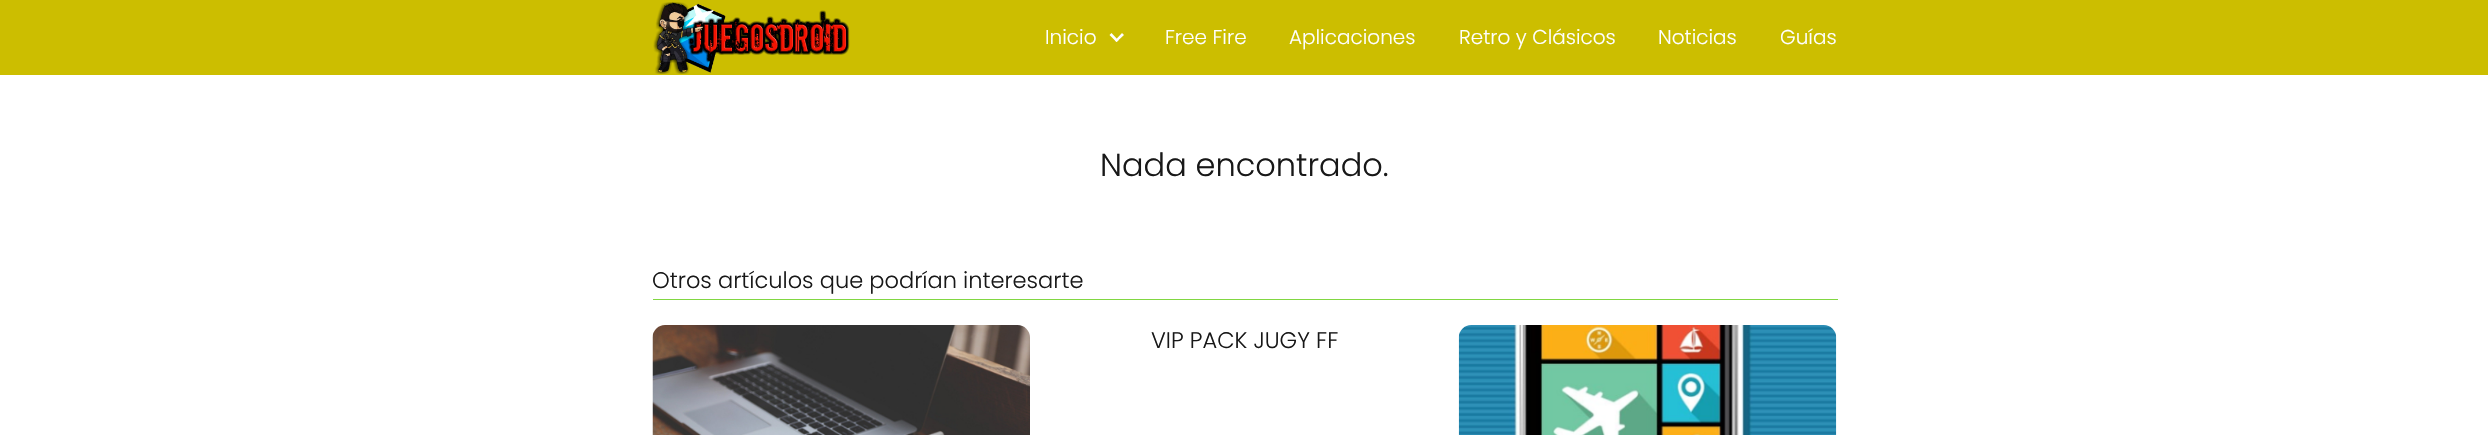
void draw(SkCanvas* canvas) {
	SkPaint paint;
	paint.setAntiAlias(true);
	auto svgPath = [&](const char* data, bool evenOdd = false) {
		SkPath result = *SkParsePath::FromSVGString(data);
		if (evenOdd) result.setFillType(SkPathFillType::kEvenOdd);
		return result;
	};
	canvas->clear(0xffffffff);
	paint.setColor(0xffccbe00);
	canvas->drawRect(SkRect::MakeXYWH(0, 0, 2488, 75), paint);
	canvas->drawImageRect(SkImages::DeferredFromEncodedData(SkData::MakeFromFileName("img1.png")), SkRect::MakeXYWH(653, 2, 197, 72), SkSamplingOptions());
	SkFont f1(fontMgr->matchFamilyStyle("Poppins", SkFontStyle(300, SkFontStyle::kNormal_Width, SkFontStyle::kUpright_Slant)), 20);
	f1.setSubpixel(true);
	paint.setColor(0xffffffff);
	canvas->drawString("Inicio", 1045, 44, f1, paint);
	canvas->drawPath(svgPath("M1122 33L1124 35L1116.5 42L1115 40.5Z"), paint);
	canvas->drawPath(svgPath("M1111.5 33L1118.5 40.5L1116.5 42L1109.5 35Z"), paint);
	canvas->drawString("Free Fire", 1165, 44, f1, paint);
	canvas->drawString("Aplicaciones", 1289, 44, f1, paint);
	canvas->drawString("Retro y Clásicos", 1459, 44, f1, paint);
	canvas->drawString("Noticias", 1658, 44, f1, paint);
	canvas->drawString("Guías", 1780, 44, f1, paint);
	SkFont f2(fontMgr->matchFamilyStyle("Poppins", SkFontStyle(300, SkFontStyle::kNormal_Width, SkFontStyle::kUpright_Slant)), 32);
	f2.setSubpixel(true);
	paint.setColor(0xff181818);
	canvas->drawString("Nada encontrado.", 1100, 176, f2, paint);
	paint.setColor(0xff81d742);
	canvas->drawRect(SkRect::MakeXYWH(653, 299, 1185, 1), paint);
	SkFont f3(fontMgr->matchFamilyStyle("Poppins", SkFontStyle(300, SkFontStyle::kNormal_Width, SkFontStyle::kUpright_Slant)), 22.5);
	f3.setSubpixel(true);
	paint.setColor(0xff181818);
	canvas->drawString("Otros artículos que podrían interesarte", 652, 288, f3, paint);
	canvas->drawImageRect(SkImages::DeferredFromEncodedData(SkData::MakeFromFileName("img2.png")), SkRect::MakeXYWH(652, 325, 378, 110), SkSamplingOptions());
	canvas->drawString("VIP PACK JUGY FF", 1151, 348, f3, paint);
	canvas->drawImageRect(SkImages::DeferredFromEncodedData(SkData::MakeFromFileName("img3.png")), SkRect::MakeXYWH(1458, 325, 379, 110), SkSamplingOptions());
}
